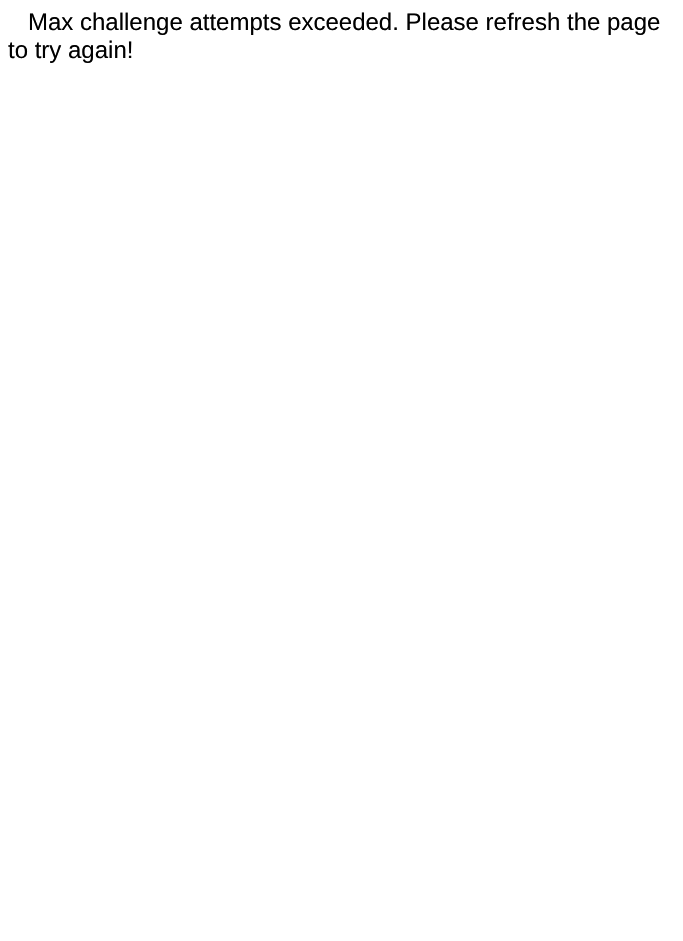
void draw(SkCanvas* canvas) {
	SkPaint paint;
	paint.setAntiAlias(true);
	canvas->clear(0xffffffff);
	SkFont f1(fontMgr->matchFamilyStyle("Liberation Sans", SkFontStyle::Normal()), 24);
	f1.setSubpixel(true);
	paint.setColor(0xff000000);
	canvas->drawString("Max challenge attempts exceeded. Please refresh the page", 28, 30, f1, paint);
	canvas->drawString("to try again!", 8, 58, f1, paint);
}
